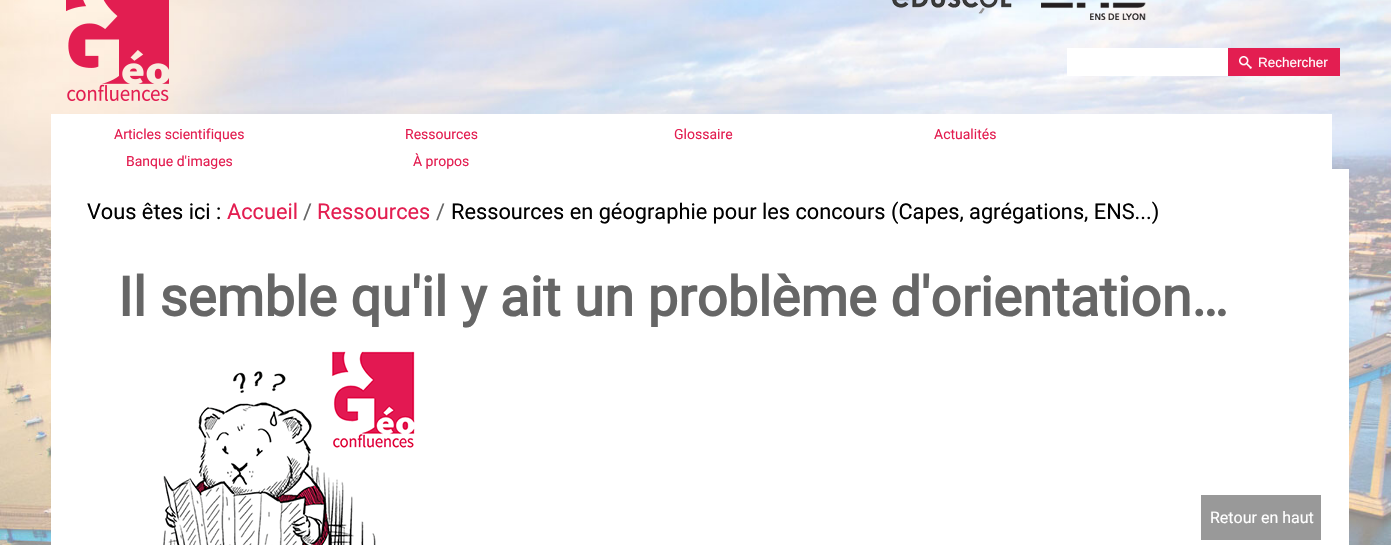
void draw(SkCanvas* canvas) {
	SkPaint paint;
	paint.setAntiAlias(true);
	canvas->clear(0xffffffff);
	canvas->drawImageRect(SkImages::DeferredFromEncodedData(SkData::MakeFromFileName("img1.png")), SkRect::MakeXYWH(0, 0, 1391, 545), SkSamplingOptions());
	canvas->drawImageRect(SkImages::DeferredFromEncodedData(SkData::MakeFromFileName("img2.png")), SkRect::MakeXYWH(66, 0, 103, 101), SkSamplingOptions());
	canvas->drawImageRect(SkImages::DeferredFromEncodedData(SkData::MakeFromFileName("img3.png")), SkRect::MakeXYWH(892, 0, 120, 14), SkSamplingOptions());
	canvas->drawImageRect(SkImages::DeferredFromEncodedData(SkData::MakeFromFileName("img4.png")), SkRect::MakeXYWH(1041, 2, 105, 18), SkSamplingOptions());
	paint.setColor(0xffffffff);
	canvas->drawRect(SkRect::MakeXYWH(1067, 48, 161, 28), paint);
	paint.setColor(0xffe31e51);
	canvas->drawRect(SkRect::MakeXYWH(1228, 48, 112, 28), paint);
	canvas->drawImageRect(SkImages::DeferredFromEncodedData(SkData::MakeFromFileName("img5.png")), SkRect::MakeXYWH(1239, 56, 13, 13), SkSamplingOptions());
	SkFont f1(fontMgr->matchFamilyStyle("Liberation Sans", SkFontStyle::Normal()), 13.5);
	f1.setSubpixel(true);
	paint.setColor(0xffffffff);
	canvas->drawString("Rechercher", 1258, 67, f1, paint);
	canvas->drawRect(SkRect::MakeXYWH(51, 114, 1281, 55), paint);
	SkFont f2(fontMgr->matchFamilyStyle("Roboto", SkFontStyle::Normal()), 14);
	f2.setSubpixel(true);
	paint.setColor(0xffe31e51);
	canvas->drawString("Articles scientifiques", 114, 139, f2, paint);
	canvas->drawString("Ressources", 405, 139, f2, paint);
	canvas->drawString("Glossaire", 674, 139, f2, paint);
	canvas->drawString("Actualités", 934, 139, f2, paint);
	canvas->drawString("Banque d'images", 126, 166, f2, paint);
	canvas->drawString("À propos", 413, 166, f2, paint);
	paint.setColor(0xffffffff);
	canvas->drawRect(SkRect::MakeXYWH(51, 169, 1298, 376), paint);
	SkFont f3(fontMgr->matchFamilyStyle("Roboto", SkFontStyle::Normal()), 21.75);
	f3.setSubpixel(true);
	paint.setColor(0xff000000);
	canvas->drawString("Vous êtes ici :", 87, 219, f3, paint);
	paint.setColor(0xffe31e51);
	canvas->drawString("Accueil", 227, 219, f3, paint);
	paint.setColor(0xff666666);
	canvas->drawString("/", 303, 219, f3, paint);
	paint.setColor(0xffe31e51);
	canvas->drawString("Ressources", 317, 219, f3, paint);
	paint.setColor(0xff666666);
	canvas->drawString("/", 436, 219, f3, paint);
	paint.setColor(0xff000000);
	canvas->drawString("Ressources en géographie pour les concours (Capes, agrégations, ENS...)", 451, 219, f3, paint);
	SkFont f4(fontMgr->matchFamilyStyle("Roboto", SkFontStyle::Bold()), 54.4);
	f4.setSubpixel(true);
	paint.setColor(0xff666666);
	canvas->drawString("Il semble qu'il y ait un problème d'orientation…", 118, 316, f4, paint);
	canvas->drawImageRect(SkImages::DeferredFromEncodedData(SkData::MakeFromFileName("img6.png")), SkRect::MakeXYWH(163, 351, 252, 194), SkSamplingOptions());
	paint.setColor(0xff999999);
	canvas->drawRect(SkRect::MakeXYWH(1201, 495, 120, 45), paint);
	SkFont f5(fontMgr->matchFamilyStyle("Roboto", SkFontStyle::Normal()), 16);
	f5.setSubpixel(true);
	paint.setColor(0xffffffff);
	canvas->drawString("Retour en haut", 1210, 523, f5, paint);
}
